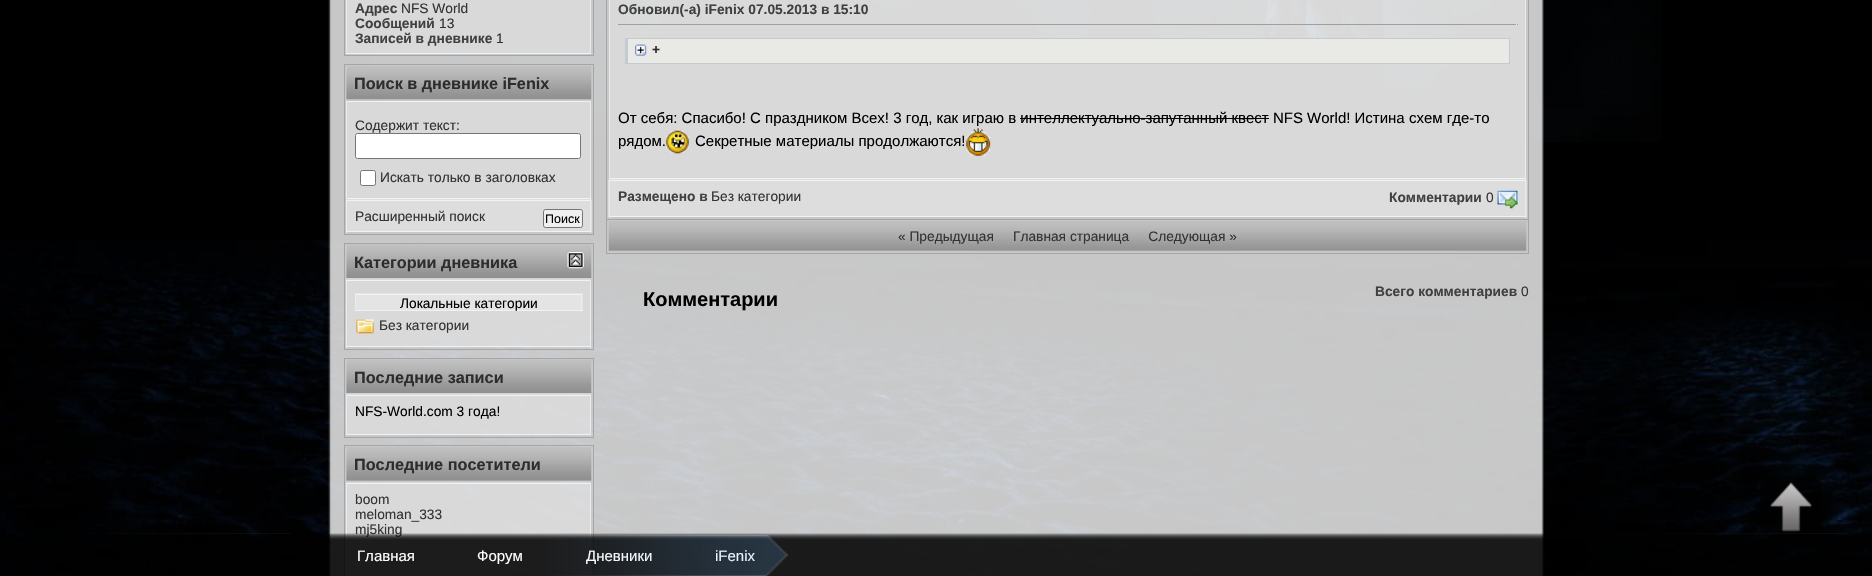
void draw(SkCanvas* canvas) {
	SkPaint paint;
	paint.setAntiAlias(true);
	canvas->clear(0xff000000);
	canvas->drawImageRect(SkImages::DeferredFromEncodedData(SkData::MakeFromFileName("img1.png")), SkRect::MakeXYWH(0, 240, 1872, 336), SkSamplingOptions());
	canvas->drawImageRect(SkImages::DeferredFromEncodedData(SkData::MakeFromFileName("img2.png")), SkRect::MakeXYWH(372, 0, 1289, 142), SkSamplingOptions());
	canvas->drawImageRect(SkImages::DeferredFromEncodedData(SkData::MakeFromFileName("img3.png")), SkRect::MakeXYWH(328, 0, 1216, 576), SkSamplingOptions());
	paint.setStroke(true);
	paint.setStrokeWidth(1);
	paint.setColor(0xffa5a5a5);
	canvas->drawRect(SkRect::MakeXYWH(344.5, -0.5, 249, 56), paint);
	paint.setStroke(false);
	paint.setColor(0xb3e0e0e0);
	canvas->drawRect(SkRect::MakeXYWH(347, 0, 243, 53), paint);
	paint.setColor(0xffebebeb);
	canvas->drawRect(SkRect::MakeXYWH(590, 0, 1, 54), paint);
	paint.setColor(0xfff2f2f2);
	canvas->drawRect(SkRect::MakeXYWH(346, 53, 245, 1), paint);
	paint.setColor(0xffebebeb);
	canvas->drawRect(SkRect::MakeXYWH(346, 0, 1, 54), paint);
	SkFont f1(fontMgr->matchFamilyStyle("Liberation Sans", SkFontStyle::Bold()), 13.75);
	f1.setSubpixel(true);
	paint.setColor(0xff404040);
	canvas->drawString("Адрес", 355, 13, f1, paint);
	SkFont f2(fontMgr->matchFamilyStyle("Liberation Sans", SkFontStyle::Normal()), 13.75);
	f2.setSubpixel(true);
	paint.setColor(0xff333333);
	canvas->drawString("NFS World", 401, 13, f2, paint);
	paint.setColor(0xff404040);
	canvas->drawString("Сообщений", 355, 28, f1, paint);
	paint.setColor(0xff333333);
	canvas->drawString("13", 439, 28, f2, paint);
	paint.setColor(0xff404040);
	canvas->drawString("Записей в дневнике", 355, 43, f1, paint);
	paint.setColor(0xff333333);
	canvas->drawString("1", 496, 43, f2, paint);
	paint.setStroke(true);
	paint.setColor(0xffa5a5a5);
	canvas->drawRect(SkRect::MakeXYWH(344.5, 64.5, 249, 170), paint);
	paint.setStroke(false);
	paint.setColor(0xffebebeb);
	canvas->drawRect(SkRect::MakeXYWH(346, 66, 245, 34), paint);
	canvas->drawImageRect(SkImages::DeferredFromEncodedData(SkData::MakeFromFileName("img4.png")), SkRect::MakeXYWH(346, 66, 246, 34), SkSamplingOptions());
	SkFont f3(fontMgr->matchFamilyStyle("Liberation Sans", SkFontStyle::Bold()), 16.25);
	f3.setSubpixel(true);
	paint.setColor(0xff2d2d2d);
	canvas->drawString("Поиск в дневнике iFenix", 354, 89, f3, paint);
	paint.setColor(0xffd9d9d9);
	canvas->drawRect(SkRect::MakeXYWH(347, 102, 243, 96), paint);
	paint.setColor(0xfff2f2f2);
	canvas->drawRect(SkRect::MakeXYWH(346, 101, 245, 1), paint);
	paint.setColor(0xffebebeb);
	canvas->drawRect(SkRect::MakeXYWH(590, 101, 1, 98), paint);
	paint.setColor(0xfff2f2f2);
	canvas->drawRect(SkRect::MakeXYWH(346, 198, 245, 1), paint);
	paint.setColor(0xffebebeb);
	canvas->drawRect(SkRect::MakeXYWH(346, 101, 1, 98), paint);
	paint.setColor(0xff333333);
	canvas->drawString("Содержит текст:", 355, 130, f2, paint);
	paint.setColor(0xffffffff);
	canvas->drawRoundRect(SkRect::MakeXYWH(355.5, 133.5, 225, 25), 2, 2, paint);
	paint.setStroke(true);
	paint.setColor(0xff767676);
	canvas->drawRoundRect(SkRect::MakeXYWH(355.5, 133.5, 225, 25), 2, 2, paint);
	paint.setStroke(false);
	paint.setColor(0xffffffff);
	canvas->drawRoundRect(SkRect::MakeXYWH(360.5, 170.5, 15, 15), 2, 2, paint);
	paint.setStroke(true);
	paint.setColor(0xff767676);
	canvas->drawRoundRect(SkRect::MakeXYWH(360.5, 170.5, 15, 15), 2, 2, paint);
	paint.setStroke(false);
	paint.setColor(0xff333333);
	canvas->drawString("Искать только в заголовках", 380, 182, f2, paint);
	paint.setColor(0xffdddddd);
	canvas->drawRect(SkRect::MakeXYWH(346, 199, 246, 33), paint);
	paint.setColor(0xfff2f2f2);
	canvas->drawRect(SkRect::MakeXYWH(346, 200, 245, 1), paint);
	paint.setColor(0xffebebeb);
	canvas->drawRect(SkRect::MakeXYWH(590, 200, 1, 33), paint);
	paint.setColor(0xfff2f2f2);
	canvas->drawRect(SkRect::MakeXYWH(346, 231, 245, 1), paint);
	paint.setColor(0xffebebeb);
	canvas->drawRect(SkRect::MakeXYWH(346, 200, 1, 33), paint);
	paint.setColor(0xff333333);
	canvas->drawString("Расширенный поиск", 355, 221, f2, paint);
	paint.setColor(0xffefefef);
	canvas->drawRoundRect(SkRect::MakeXYWH(543.5, 209.5, 39, 18), 2, 2, paint);
	paint.setStroke(true);
	paint.setColor(0xff767676);
	canvas->drawRoundRect(SkRect::MakeXYWH(543.5, 209.5, 39, 18), 2, 2, paint);
	SkFont f4(fontMgr->matchFamilyStyle("Liberation Sans", SkFontStyle::Normal()), 12.5);
	f4.setSubpixel(true);
	paint.setStroke(false);
	paint.setColor(0xff000000);
	canvas->drawString("Поиск", 545, 223, f4, paint);
	paint.setStroke(true);
	paint.setColor(0xffa5a5a5);
	canvas->drawRect(SkRect::MakeXYWH(344.5, 243.5, 249, 106), paint);
	paint.setStroke(false);
	paint.setColor(0xffebebeb);
	canvas->drawRect(SkRect::MakeXYWH(346, 245, 245, 34), paint);
	canvas->drawImageRect(SkImages::DeferredFromEncodedData(SkData::MakeFromFileName("img5.png")), SkRect::MakeXYWH(346, 244, 246, 35), SkSamplingOptions());
	paint.setColor(0xff2d2d2d);
	canvas->drawString("Категории дневника", 354, 268, f3, paint);
	canvas->drawImageRect(SkImages::DeferredFromEncodedData(SkData::MakeFromFileName("img6.png")), SkRect::MakeXYWH(567, 252, 17, 17), SkSamplingOptions());
	paint.setColor(0xb3e0e0e0);
	canvas->drawRect(SkRect::MakeXYWH(346, 279, 245, 67), paint);
	paint.setColor(0xfff2f2f2);
	canvas->drawRect(SkRect::MakeXYWH(346, 280, 245, 1), paint);
	paint.setColor(0xffebebeb);
	canvas->drawRect(SkRect::MakeXYWH(590, 280, 1, 68), paint);
	paint.setColor(0xfff2f2f2);
	canvas->drawRect(SkRect::MakeXYWH(346, 346, 245, 1), paint);
	paint.setColor(0xffebebeb);
	canvas->drawRect(SkRect::MakeXYWH(346, 280, 1, 68), paint);
	paint.setColor(0xffe4e4e4);
	canvas->drawRect(SkRect::MakeXYWH(355, 293, 228, 17), paint);
	paint.setColor(0xfff2f2f2);
	canvas->drawRect(SkRect::MakeXYWH(355, 294, 228, 1), paint);
	paint.setColor(0xffebebeb);
	canvas->drawRect(SkRect::MakeXYWH(581, 294, 1, 17), paint);
	paint.setColor(0xfff2f2f2);
	canvas->drawRect(SkRect::MakeXYWH(355, 310, 228, 1), paint);
	paint.setColor(0xffebebeb);
	canvas->drawRect(SkRect::MakeXYWH(355, 294, 1, 17), paint);
	paint.setColor(0xff000000);
	canvas->drawString("Локальные категории", 400, 308, f2, paint);
	canvas->drawImageRect(SkImages::DeferredFromEncodedData(SkData::MakeFromFileName("img7.png")), SkRect::MakeXYWH(356, 319, 18, 15), SkSamplingOptions());
	paint.setColor(0xff333333);
	canvas->drawString("Без категории", 379, 330, f2, paint);
	paint.setStroke(true);
	paint.setColor(0xffa5a5a5);
	canvas->drawRect(SkRect::MakeXYWH(344.5, 358.5, 249, 79), paint);
	paint.setStroke(false);
	paint.setColor(0xffebebeb);
	canvas->drawRect(SkRect::MakeXYWH(346, 360, 245, 34), paint);
	canvas->drawImageRect(SkImages::DeferredFromEncodedData(SkData::MakeFromFileName("img8.png")), SkRect::MakeXYWH(346, 359, 246, 35), SkSamplingOptions());
	paint.setColor(0xff2d2d2d);
	canvas->drawString("Последние записи", 354, 383, f3, paint);
	paint.setColor(0xb3e0e0e0);
	canvas->drawRect(SkRect::MakeXYWH(346, 394, 245, 40), paint);
	paint.setColor(0xfff2f2f2);
	canvas->drawRect(SkRect::MakeXYWH(346, 395, 245, 1), paint);
	paint.setColor(0xffebebeb);
	canvas->drawRect(SkRect::MakeXYWH(590, 395, 1, 40), paint);
	paint.setColor(0xfff2f2f2);
	canvas->drawRect(SkRect::MakeXYWH(346, 434, 245, 1), paint);
	paint.setColor(0xffebebeb);
	canvas->drawRect(SkRect::MakeXYWH(346, 395, 1, 40), paint);
	paint.setColor(0xff000000);
	canvas->drawString("NFS-World.com 3 года!", 355, 416, f2, paint);
	paint.setStroke(true);
	paint.setColor(0xffa5a5a5);
	canvas->drawRect(SkRect::MakeXYWH(344.5, 445.5, 249, 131), paint);
	paint.setStroke(false);
	paint.setColor(0xffebebeb);
	canvas->drawRect(SkRect::MakeXYWH(346, 448, 245, 33), paint);
	canvas->drawImageRect(SkImages::DeferredFromEncodedData(SkData::MakeFromFileName("img9.png")), SkRect::MakeXYWH(346, 447, 246, 34), SkSamplingOptions());
	paint.setColor(0xff2d2d2d);
	canvas->drawString("Последние посетители", 354, 470, f3, paint);
	paint.setColor(0xb3e0e0e0);
	canvas->drawRect(SkRect::MakeXYWH(346, 482, 245, 93), paint);
	paint.setColor(0xfff2f2f2);
	canvas->drawRect(SkRect::MakeXYWH(346, 483, 245, 1), paint);
	paint.setColor(0xffebebeb);
	canvas->drawRect(SkRect::MakeXYWH(590, 483, 1, 92), paint);
	canvas->drawRect(SkRect::MakeXYWH(346, 483, 1, 92), paint);
	paint.setColor(0xff333333);
	canvas->drawString("boom", 355, 504, f2, paint);
	canvas->drawString("meloman_333", 355, 519, f2, paint);
	canvas->drawString("mj5king", 355, 534, f2, paint);
	paint.setStroke(true);
	paint.setColor(0xffa5a5a5);
	canvas->drawRect(SkRect::MakeXYWH(606.5, -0.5, 922, 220), paint);
	paint.setStroke(false);
	paint.setColor(0xb3e0e0e0);
	canvas->drawRect(SkRect::MakeXYWH(610, 0, 915, 178), paint);
	paint.setColor(0xffebebeb);
	canvas->drawRect(SkRect::MakeXYWH(1525, 0, 1, 179), paint);
	paint.setColor(0xfff2f2f2);
	canvas->drawRect(SkRect::MakeXYWH(609, 178, 917, 1), paint);
	paint.setColor(0xffebebeb);
	canvas->drawRect(SkRect::MakeXYWH(609, 0, 1, 179), paint);
	paint.setColor(0xff404040);
	canvas->drawString("Обновил(-а) iFenix 07.05.2013 в 15:10", 618, 14, f1, paint);
	paint.setColor(0xff9f9f9f);
	canvas->drawRect(SkRect::MakeXYWH(618, 24, 900, 1), paint);
	paint.setColor(0xffeeeeee);
	canvas->drawRect(SkRect::MakeXYWH(1516, 24, 1, 1), paint);
	paint.setColor(0xffe9e9e6);
	canvas->drawRect(SkRect::MakeXYWH(628, 39, 881, 24), paint);
	paint.setColor(0xffc3cbd1);
	canvas->drawRect(SkRect::MakeXYWH(625, 38, 885, 1), paint);
	canvas->drawRect(SkRect::MakeXYWH(1509, 38, 1, 26), paint);
	canvas->drawRect(SkRect::MakeXYWH(625, 63, 885, 1), paint);
	canvas->drawRect(SkRect::MakeXYWH(625, 38, 3, 26), paint);
	canvas->drawImageRect(SkImages::DeferredFromEncodedData(SkData::MakeFromFileName("img10.png")), SkRect::MakeXYWH(635, 44, 12, 12), SkSamplingOptions());
	paint.setColor(0xff2d2d2d);
	canvas->drawString("+", 652, 54, f1, paint);
	SkFont f5(fontMgr->matchFamilyStyle("Liberation Sans", SkFontStyle::Normal()), 15);
	f5.setSubpixel(true);
	paint.setColor(0xff000000);
	canvas->drawString("От себя: Спасибо! С праздником Всех! 3 год, как играю в интеллектуально-запутанный квест NFS World! Истина схем где-то", 618, 123, f5, paint);
	canvas->drawRect(SkRect::MakeXYWH(1020, 118, 249, 1), paint);
	canvas->drawString("рядом.", 618, 146, f5, paint);
	canvas->drawImageRect(SkImages::DeferredFromEncodedData(SkData::MakeFromFileName("img11.png")), SkRect::MakeXYWH(666, 130, 23, 24), SkSamplingOptions());
	canvas->drawString("Секретные материалы продолжаются!", 695, 146, f5, paint);
	canvas->drawImageRect(SkImages::DeferredFromEncodedData(SkData::MakeFromFileName("img12.png")), SkRect::MakeXYWH(966, 128, 25, 28), SkSamplingOptions());
	paint.setColor(0xffdddddd);
	canvas->drawRect(SkRect::MakeXYWH(608, 179, 919, 38), paint);
	paint.setColor(0xfff2f2f2);
	canvas->drawRect(SkRect::MakeXYWH(609, 180, 917, 1), paint);
	paint.setColor(0xffebebeb);
	canvas->drawRect(SkRect::MakeXYWH(1525, 180, 1, 38), paint);
	paint.setColor(0xfff2f2f2);
	canvas->drawRect(SkRect::MakeXYWH(609, 216, 917, 1), paint);
	paint.setColor(0xffebebeb);
	canvas->drawRect(SkRect::MakeXYWH(609, 180, 1, 38), paint);
	paint.setColor(0xff404040);
	canvas->drawString("Размещено в", 618, 201, f1, paint);
	paint.setColor(0xff333333);
	canvas->drawString("Без категории", 711, 201, f2, paint);
	paint.setColor(0xff404040);
	canvas->drawString("Комментарии", 1389, 202, f1, paint);
	paint.setColor(0xff333333);
	canvas->drawString("0", 1486, 202, f2, paint);
	canvas->drawImageRect(SkImages::DeferredFromEncodedData(SkData::MakeFromFileName("img13.png")), SkRect::MakeXYWH(1497, 190, 21, 19), SkSamplingOptions());
	paint.setColor(0xffa5a5a5);
	canvas->drawRect(SkRect::MakeXYWH(1528, 220, 1, 34), paint);
	canvas->drawRect(SkRect::MakeXYWH(606, 253, 923, 1), paint);
	canvas->drawRect(SkRect::MakeXYWH(606, 220, 1, 34), paint);
	canvas->drawImageRect(SkImages::DeferredFromEncodedData(SkData::MakeFromFileName("img14.png")), SkRect::MakeXYWH(608, 221, 919, 30), SkSamplingOptions());
	paint.setColor(0xff333333);
	canvas->drawString("« Предыдущая     Главная страница     Следующая »", 898, 241, f2, paint);
	SkFont f6(fontMgr->matchFamilyStyle("Liberation Sans", SkFontStyle::Bold()), 20);
	f6.setSubpixel(true);
	paint.setColor(0xff000000);
	canvas->drawString("Комментарии", 643, 306, f6, paint);
	paint.setColor(0xff404040);
	canvas->drawString("Всего комментариев", 1375, 296, f1, paint);
	paint.setColor(0xff333333);
	canvas->drawString("0", 1521, 296, f2, paint);
	canvas->drawImageRect(SkImages::DeferredFromEncodedData(SkData::MakeFromFileName("img15.png")), SkRect::MakeXYWH(1760, 476, 63, 63), SkSamplingOptions());
	canvas->drawImageRect(SkImages::DeferredFromEncodedData(SkData::MakeFromFileName("img16.png")), SkRect::MakeXYWH(57, 533, 1815, 43), SkSamplingOptions());
	paint.setColor(0xffffffff);
	canvas->drawString("Главная", 357, 561, f5, paint);
	canvas->drawString("Форум", 477, 561, f5, paint);
	canvas->drawString("Дневники", 586, 561, f5, paint);
	canvas->drawString("iFenix", 715, 561, f5, paint);
	canvas->drawImageRect(SkImages::DeferredFromEncodedData(SkData::MakeFromFileName("img17.png")), SkRect::MakeXYWH(547, 535, 241, 41), SkSamplingOptions());
}
